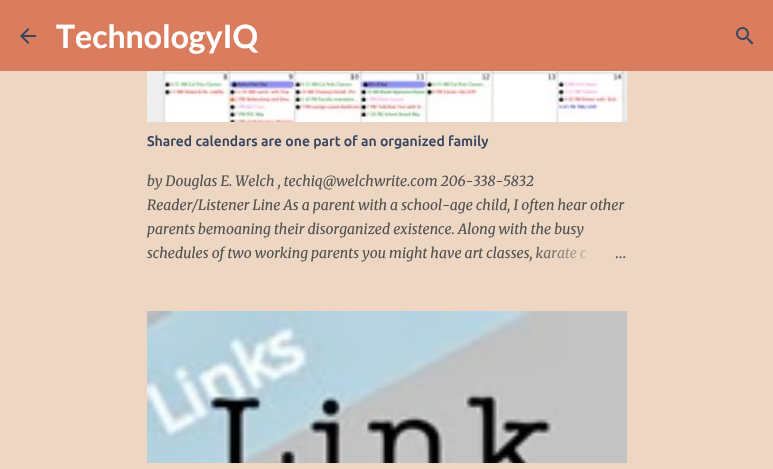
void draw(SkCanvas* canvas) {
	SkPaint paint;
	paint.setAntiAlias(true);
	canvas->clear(0xffeed7c2);
	paint.setColor(0xffda7d5e);
	canvas->drawRect(SkRect::MakeXYWH(0, 0, 773, 71), paint);
	canvas->drawImageRect(SkImages::DeferredFromEncodedData(SkData::MakeFromFileName("img1.png")), SkRect::MakeXYWH(20, 28, 16, 16), SkSamplingOptions());
	SkFont f1(fontMgr->matchFamilyStyle("Lato", SkFontStyle::Bold()), 32);
	f1.setSubpixel(true);
	paint.setColor(0xffffffff);
	canvas->drawString("TechnologyIQ", 56, 48, f1, paint);
	canvas->drawImageRect(SkImages::DeferredFromEncodedData(SkData::MakeFromFileName("img2.png")), SkRect::MakeXYWH(736, 27, 18, 18), SkSamplingOptions());
	canvas->drawImageRect(SkImages::DeferredFromEncodedData(SkData::MakeFromFileName("img3.png")), SkRect::MakeXYWH(147, 71, 480, 51), SkSamplingOptions());
	SkFont f2(fontMgr->matchFamilyStyle("Ubuntu", SkFontStyle(500, SkFontStyle::kNormal_Width, SkFontStyle::kUpright_Slant)), 14);
	f2.setSubpixel(true);
	paint.setColor(0xff374561);
	canvas->drawString("Shared calendars are one part of an organized family", 147, 146, f2, paint);
	SkFont f3(fontMgr->matchFamilyStyle("Merriweather", SkFontStyle::Italic()), 14);
	f3.setSubpixel(true);
	paint.setColor(0xff535353);
	canvas->drawString("by Douglas E. Welch , techiq@welchwrite.com 206-338-5832", 147, 186, f3, paint);
	canvas->drawString("Reader/Listener Line As a parent with a school-age child, I often hear other", 147, 210, f3, paint);
	canvas->drawString("parents bemoaning their disorganized existence. Along with the busy", 147, 234, f3, paint);
	canvas->drawString("schedules of two working parents you might have art classes, karate c", 147, 258, f3, paint);
	{
		const SkColor colors[] = {0xffeed7c2, 0xffeed7c2, 0x00eed7c2};
		const float stops[] = {0, 0.2, 1};
		const SkPoint ends[] = {{627, 253}, {531, 253}};
		paint.setShader(SkGradientShader::MakeLinear(ends, colors, stops, 3, SkTileMode::kClamp));
		paint.setAlpha(255);
	}
	canvas->drawRect(SkRect::MakeXYWH(536, 247, 50, 12), paint);
	SkFont f4(fontMgr->matchFamilyStyle("Merriweather", SkFontStyle(300, SkFontStyle::kNormal_Width, SkFontStyle::kUpright_Slant)), 14);
	f4.setSubpixel(true);
	paint.setShader(nullptr);
	paint.setColor(0xff535353);
	canvas->drawString("…", 615, 258, f4, paint);
	canvas->drawImageRect(SkImages::DeferredFromEncodedData(SkData::MakeFromFileName("img4.png")), SkRect::MakeXYWH(147, 311, 480, 152), SkSamplingOptions());
}
